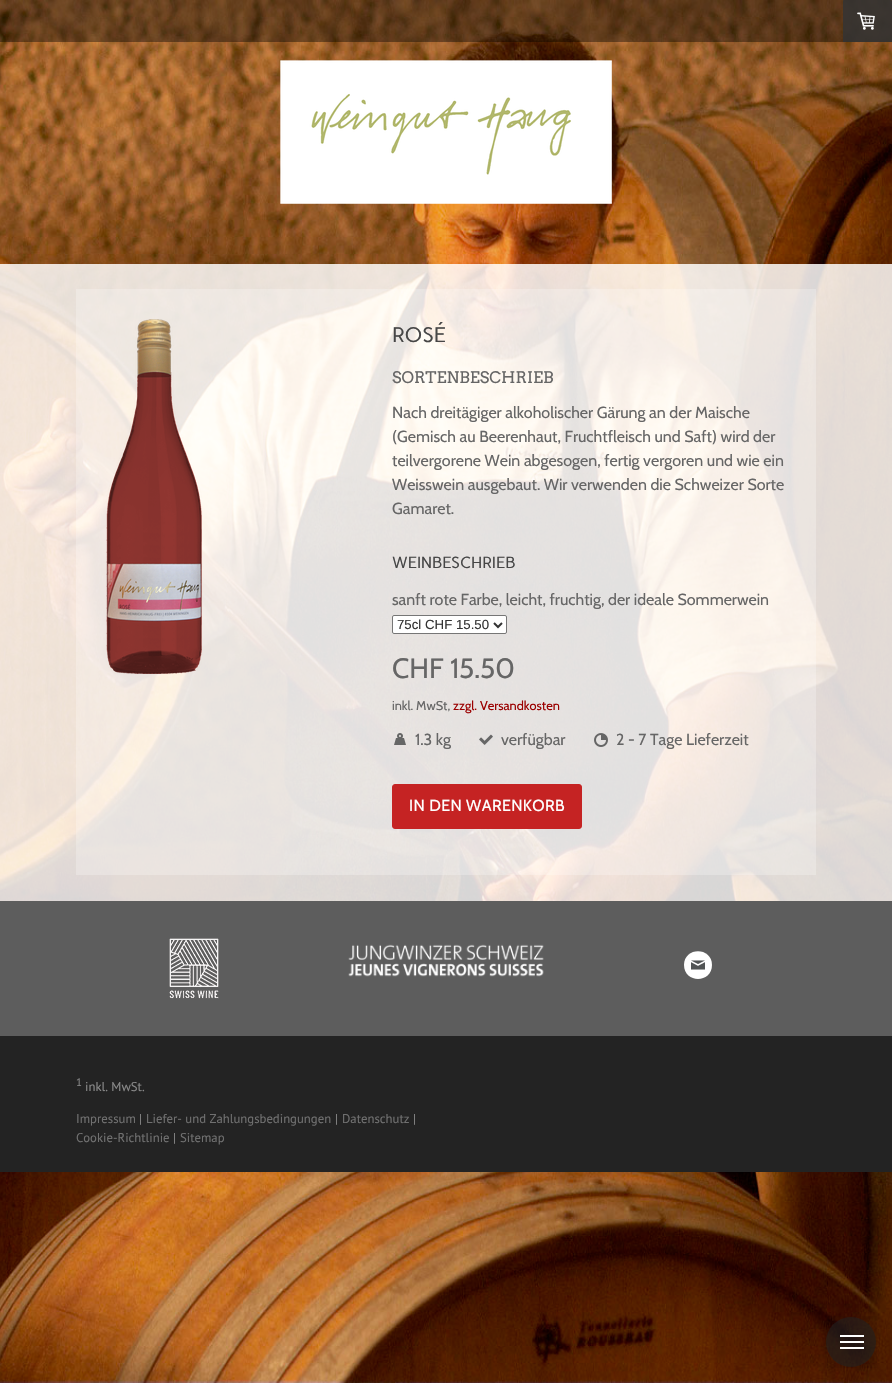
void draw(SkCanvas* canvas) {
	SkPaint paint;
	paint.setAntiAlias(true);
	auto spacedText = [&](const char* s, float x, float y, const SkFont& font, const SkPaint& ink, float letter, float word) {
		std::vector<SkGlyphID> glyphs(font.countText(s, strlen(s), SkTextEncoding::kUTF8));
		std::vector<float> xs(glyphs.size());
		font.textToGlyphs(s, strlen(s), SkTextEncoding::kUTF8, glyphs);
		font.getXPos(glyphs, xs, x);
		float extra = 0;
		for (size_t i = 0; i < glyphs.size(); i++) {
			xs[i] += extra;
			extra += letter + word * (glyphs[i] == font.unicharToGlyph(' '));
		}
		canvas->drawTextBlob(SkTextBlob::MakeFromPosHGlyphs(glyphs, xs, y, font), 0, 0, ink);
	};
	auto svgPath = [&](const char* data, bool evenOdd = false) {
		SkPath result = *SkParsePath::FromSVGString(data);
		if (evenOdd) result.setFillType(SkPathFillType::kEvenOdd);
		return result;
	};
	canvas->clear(0xffffffff);
	canvas->drawImageRect(SkImages::DeferredFromEncodedData(SkData::MakeFromFileName("img1.png")), SkRect::MakeXYWH(0, 0, 892, 1383), SkSamplingOptions());
	paint.setColor(0x0f000000);
	canvas->drawRect(SkRect::MakeXYWH(0, 0, 892, 264), paint);
	canvas->drawImageRect(SkImages::DeferredFromEncodedData(SkData::MakeFromFileName("img2.png")), SkRect::MakeXYWH(280, 60, 332, 144), SkSamplingOptions());
	paint.setColor(0x66000000);
	canvas->drawRect(SkRect::MakeXYWH(0, 0, 892, 42), paint);
	paint.setColor(0xd9333333);
	canvas->drawPath(svgPath("M844 0H891C891.5 0 892 .5 892 1V42H843V1C843 .5 843.5 0 844 0Z"), paint);
	canvas->drawImageRect(SkImages::DeferredFromEncodedData(SkData::MakeFromFileName("img3.png")), SkRect::MakeXYWH(857, 12, 18, 18), SkSamplingOptions());
	paint.setColor(0xd6ffffff);
	canvas->drawRect(SkRect::MakeXYWH(0, 264, 892, 637), paint);
	paint.setColor(0x40ffffff);
	canvas->drawRect(SkRect::MakeXYWH(76, 289, 740, 586), paint);
	canvas->drawImageRect(SkImages::DeferredFromEncodedData(SkData::MakeFromFileName("img4.png")), SkRect::MakeXYWH(106, 319, 96, 355), SkSamplingOptions());
	SkFont f1(fontMgr->matchFamilyStyle("Carme", SkFontStyle::Normal()), 21);
	f1.setSubpixel(true);
	paint.setColor(0xff464646);
	canvas->drawString("ROSÉ", 392, 342, f1, paint);
	SkFont f2(fontMgr->matchFamilyStyle("Arvo", SkFontStyle::Normal()), 16);
	f2.setSubpixel(true);
	paint.setColor(0xff666666);
	canvas->drawString("SORTENBESCHRIEB", 392, 383, f2, paint);
	SkFont f3(fontMgr->matchFamilyStyle("Cabin", SkFontStyle::Normal()), 16);
	f3.setSubpixel(true);
	canvas->drawString("Nach dreitägiger alkoholischer Gärung an der Maische", 392, 418, f3, paint);
	canvas->drawString("(Gemisch au Beerenhaut, Fruchtfleisch und Saft) wird der", 392, 442, f3, paint);
	canvas->drawString("teilvergorene Wein abgesogen, fertig vergoren und wie ein", 392, 466, f3, paint);
	canvas->drawString("Weisswein ausgebaut. Wir verwenden die Schweizer Sorte", 392, 490, f3, paint);
	canvas->drawString("Gamaret.", 392, 514, f3, paint);
	SkFont f4(fontMgr->matchFamilyStyle("Carme", SkFontStyle::Normal()), 16);
	f4.setSubpixel(true);
	paint.setColor(0xff464646);
	canvas->drawString("WEINBESCHRIEB", 392, 568, f4, paint);
	paint.setColor(0xff666666);
	canvas->drawString("sanft rote Farbe, leicht, fruchtig, der ideale Sommerwein", 392, 605, f3, paint);
	paint.setColor(0xffffffff);
	canvas->drawRoundRect(SkRect::MakeXYWH(392.5, 615.5, 114, 18), 1.5, 1.5, paint);
	paint.setStroke(true);
	paint.setStrokeWidth(1);
	paint.setColor(0xff767676);
	canvas->drawRoundRect(SkRect::MakeXYWH(392.5, 615.5, 114, 18), 1.5, 1.5, paint);
	paint.setStrokeWidth(2);
	paint.setColor(0xff333333);
	canvas->drawPath(svgPath("M494 623L498 627L502 623"), paint);
	SkFont f5(fontMgr->matchFamilyStyle("Liberation Sans", SkFontStyle::Normal()), 13.25);
	f5.setSubpixel(true);
	paint.setStroke(false);
	canvas->drawString("75cl CHF 15.50", 397, 629, f5, paint);
	SkFont f6(fontMgr->matchFamilyStyle("Cabin", SkFontStyle::Normal()), 28);
	f6.setSubpixel(true);
	paint.setColor(0xff666666);
	canvas->drawString("CHF 15.50", 392, 678, f6, paint);
	SkFont f7(fontMgr->matchFamilyStyle("Cabin", SkFontStyle::Normal()), 12.75);
	f7.setSubpixel(true);
	canvas->drawString("inkl. MwSt,", 392, 710, f7, paint);
	paint.setColor(0xff9b0000);
	canvas->drawString("zzgl. Versandkosten", 453, 710, f7, paint);
	canvas->drawImageRect(SkImages::DeferredFromEncodedData(SkData::MakeFromFileName("img5.png")), SkRect::MakeXYWH(394, 733, 12, 12), SkSamplingOptions());
	paint.setColor(0xff666666);
	canvas->drawString("1.3 kg", 415, 745, f3, paint);
	canvas->drawImageRect(SkImages::DeferredFromEncodedData(SkData::MakeFromFileName("img6.png")), SkRect::MakeXYWH(479, 734, 14, 11), SkSamplingOptions());
	canvas->drawString("verfügbar", 501, 745, f3, paint);
	canvas->drawImageRect(SkImages::DeferredFromEncodedData(SkData::MakeFromFileName("img7.png")), SkRect::MakeXYWH(594, 733, 14, 14), SkSamplingOptions());
	canvas->drawString("2 - 7 Tage Lieferzeit", 616, 745, f3, paint);
	paint.setColor(0xffc52323);
	canvas->drawRoundRect(SkRect::MakeXYWH(392.5, 784.5, 189, 44), 2.5, 2.5, paint);
	paint.setStroke(true);
	paint.setStrokeWidth(1);
	canvas->drawRoundRect(SkRect::MakeXYWH(392.5, 784.5, 189, 44), 2.5, 2.5, paint);
	paint.setStroke(false);
	paint.setColor(0xffffffff);
	spacedText("IN DEN WARENKORB", 409, 811, f3, paint, 0.4, 0);
	paint.setColor(0xff5d5d5d);
	canvas->drawRect(SkRect::MakeXYWH(0, 901, 892, 135), paint);
	canvas->drawImageRect(SkImages::DeferredFromEncodedData(SkData::MakeFromFileName("img8.png")), SkRect::MakeXYWH(169, 938, 50, 61), SkSamplingOptions());
	canvas->drawImageRect(SkImages::DeferredFromEncodedData(SkData::MakeFromFileName("img9.png")), SkRect::MakeXYWH(348, 944, 196, 33), SkSamplingOptions());
	paint.setColor(0xffffffff);
	canvas->drawPath(svgPath("M684 965C684 983.5 712 983.5 712 965C712 946.5 684 946.5 684 965Z"), paint);
	canvas->drawImageRect(SkImages::DeferredFromEncodedData(SkData::MakeFromFileName("img10.png")), SkRect::MakeXYWH(691, 960, 14, 10), SkSamplingOptions());
	paint.setColor(0xff232323);
	canvas->drawRect(SkRect::MakeXYWH(0, 1036, 892, 136), paint);
	SkFont f8(fontMgr->matchFamilyStyle("PT Sans", SkFontStyle::Normal()), 11);
	f8.setSubpixel(true);
	paint.setColor(0xff898989);
	canvas->drawString("1", 76, 1086, f8, paint);
	SkFont f9(fontMgr->matchFamilyStyle("PT Sans", SkFontStyle::Normal()), 12.75);
	f9.setSubpixel(true);
	canvas->drawString("inkl. MwSt.", 85, 1091, f9, paint);
	paint.setColor(0xff707070);
	canvas->drawString("Impressum", 76, 1123, f9, paint);
	paint.setColor(0xff898989);
	canvas->drawString("|", 139, 1123, f9, paint);
	paint.setColor(0xff707070);
	canvas->drawString("Liefer- und Zahlungsbedingungen", 146, 1123, f9, paint);
	paint.setColor(0xff898989);
	canvas->drawString("|", 335, 1123, f9, paint);
	paint.setColor(0xff707070);
	canvas->drawString("Datenschutz", 342, 1123, f9, paint);
	paint.setColor(0xff898989);
	canvas->drawString("|", 413, 1123, f9, paint);
	paint.setColor(0xff707070);
	canvas->drawString("Cookie-Richtlinie", 76, 1142, f9, paint);
	paint.setColor(0xff898989);
	canvas->drawString("|", 173, 1142, f9, paint);
	paint.setColor(0xff707070);
	canvas->drawString("Sitemap", 180, 1142, f9, paint);
	paint.setColor(0x99222222);
	canvas->drawCircle(851, 1342, 25, paint);
	paint.setColor(0x0f000000);
	canvas->drawRect(SkRect::MakeXYWH(825, 1316, 52, 52), paint);
	paint.setColor(0xffffffff);
	canvas->drawRect(SkRect::MakeXYWH(840, 1341, 24, 2), paint);
	canvas->drawRect(SkRect::MakeXYWH(840, 1335, 24, 2), paint);
	canvas->drawRect(SkRect::MakeXYWH(840, 1347, 24, 2), paint);
}
